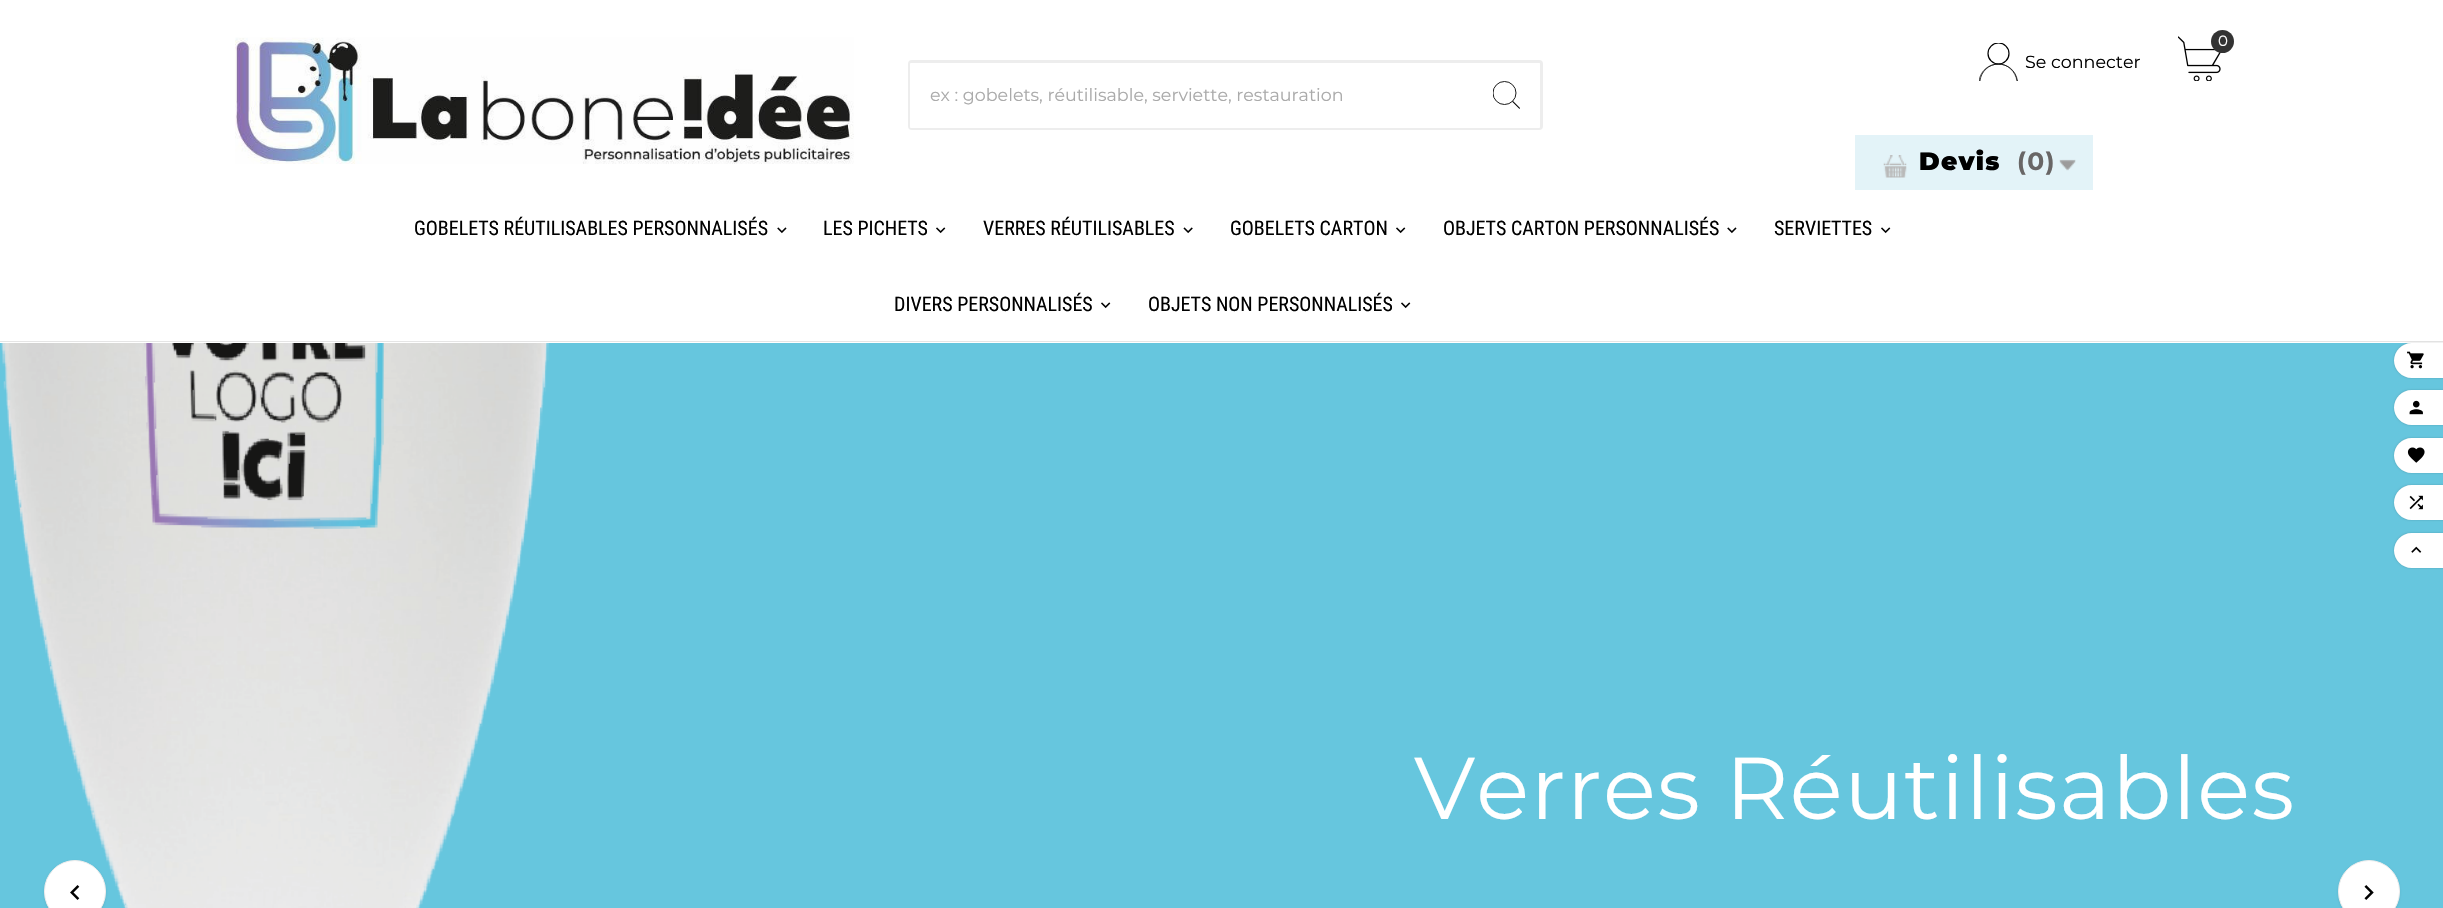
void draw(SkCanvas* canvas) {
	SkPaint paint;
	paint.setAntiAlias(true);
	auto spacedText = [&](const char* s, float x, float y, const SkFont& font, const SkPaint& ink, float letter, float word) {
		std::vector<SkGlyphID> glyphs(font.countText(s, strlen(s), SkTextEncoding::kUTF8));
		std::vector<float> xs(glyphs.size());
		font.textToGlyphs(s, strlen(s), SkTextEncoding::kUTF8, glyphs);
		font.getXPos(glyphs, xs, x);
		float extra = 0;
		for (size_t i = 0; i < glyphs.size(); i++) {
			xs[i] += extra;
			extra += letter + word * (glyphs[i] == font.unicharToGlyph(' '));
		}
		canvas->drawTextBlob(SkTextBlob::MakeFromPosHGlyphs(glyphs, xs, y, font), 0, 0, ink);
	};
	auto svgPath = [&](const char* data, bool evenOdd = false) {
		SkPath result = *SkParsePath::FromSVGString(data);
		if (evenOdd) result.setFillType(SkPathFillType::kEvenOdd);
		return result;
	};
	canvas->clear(0xffffffff);
	paint.setColor(0xffe5e5e5);
	canvas->drawRect(SkRect::MakeXYWH(0, 341, 2443, 1), paint);
	canvas->drawImageRect(SkImages::DeferredFromEncodedData(SkData::MakeFromFileName("img1.png")), SkRect::MakeXYWH(235, 37, 619, 127), SkSamplingOptions());
	paint.setStroke(true);
	paint.setStrokeWidth(3);
	paint.setColor(0xffededed);
	canvas->drawRoundRect(SkRect::MakeXYWH(909.5, 61.5, 632, 67), 2.5, 2.5, paint);
	paint.setStroke(false);
	paint.setColor(0xffffffff);
	canvas->drawPath(svgPath("M911 63H1473V128H911C910.5 128 910 127.5 910 127V64C910 63.5 910.5 63 911 63Z"), paint);
	SkFont f1(fontMgr->matchFamilyStyle("Montserrat", SkFontStyle::Normal()), 17.5);
	f1.setSubpixel(true);
	paint.setColor(0xffaaaaaa);
	canvas->drawString("ex : gobelets, réutilisable, serviette, restauration", 930, 101, f1, paint);
	paint.setColor(0xffffffff);
	canvas->drawPath(svgPath("M1473 63H1539C1539.5 63 1540 63.5 1540 64V127C1540 127.5 1539.5 128 1539 128H1473Z"), paint);
	paint.setColor(0xff000000);
	canvas->drawPath(svgPath("M1519.5 109L1512 101.5L1513 101L1520 108Z"), paint);
	canvas->save();
	canvas->clipRect(SkRect::MakeXYWH(1493, 81, 27, 28));
	paint.setStroke(true);
	paint.setStrokeWidth(0.9);
	canvas->drawCircle(1504.5, 93, 11.5, paint);
	canvas->restore();
	canvas->drawImageRect(SkImages::DeferredFromEncodedData(SkData::MakeFromFileName("img2.png")), SkRect::MakeXYWH(2178, 36, 43, 45), SkSamplingOptions());
	paint.setStroke(false);
	paint.setColor(0xff333333);
	canvas->drawCircle(2222.5, 41.5, 11.5, paint);
	SkFont f2(fontMgr->matchFamilyStyle("Montserrat", SkFontStyle::Normal()), 15);
	f2.setSubpixel(true);
	paint.setColor(0xffffffff);
	spacedText("0", 2218, 46, f2, paint, 1.25, 0);
	canvas->save();
	canvas->clipRect(SkRect::MakeXYWH(1979, 43, 39, 38));
	paint.setStroke(true);
	paint.setStrokeWidth(0.7);
	paint.setColor(0xff000000);
	canvas->drawPath(svgPath("M1998.5 64C2008 64 2015.5 71.5 2017 81H2017.5C2014 58.5 1982.5 58.5 1979 81H1980C1981 71.5 1989 64 1998.5 64Z"), paint);
	paint.setStrokeWidth(1.2);
	canvas->drawCircle(1998.5, 53.5, 10.5, paint);
	canvas->restore();
	paint.setStroke(false);
	canvas->drawString("Se connecter", 2025, 68, f1, paint);
	paint.setColor(0xffe3f3f8);
	canvas->drawRect(SkRect::MakeXYWH(1855, 135, 238, 55), paint);
	canvas->drawImageRect(SkImages::DeferredFromEncodedData(SkData::MakeFromFileName("img3.png")), SkRect::MakeXYWH(1883, 155, 24, 23), SkSamplingOptions());
	SkFont f3(fontMgr->matchFamilyStyle("Montserrat", SkFontStyle(900, SkFontStyle::kNormal_Width, SkFontStyle::kUpright_Slant)), 25);
	f3.setSubpixel(true);
	paint.setColor(0xff000000);
	spacedText("Devis", 1919, 170, f3, paint, 1.25, 0);
	SkFont f4(fontMgr->matchFamilyStyle("Montserrat", SkFontStyle::Bold()), 25);
	f4.setSubpixel(true);
	paint.setColor(0xff686666);
	spacedText("(0)", 2017, 170, f4, paint, 1.25, 0);
	canvas->drawImageRect(SkImages::DeferredFromEncodedData(SkData::MakeFromFileName("img4.png")), SkRect::MakeXYWH(2059, 159, 17, 12), SkSamplingOptions());
	SkFont f5(fontMgr->matchFamilyStyle("Roboto Condensed", SkFontStyle::Normal()), 20);
	f5.setSubpixel(true);
	paint.setColor(0xff000000);
	canvas->drawString("GOBELETS RÉUTILISABLES PERSONNALISÉS", 414, 235, f5, paint);
	canvas->drawImageRect(SkImages::DeferredFromEncodedData(SkData::MakeFromFileName("img5.png")), SkRect::MakeXYWH(777, 227, 10, 7), SkSamplingOptions());
	canvas->drawString("LES PICHETS", 823, 235, f5, paint);
	canvas->drawImageRect(SkImages::DeferredFromEncodedData(SkData::MakeFromFileName("img6.png")), SkRect::MakeXYWH(936, 227, 10, 7), SkSamplingOptions());
	canvas->drawString("VERRES RÉUTILISABLES", 983, 235, f5, paint);
	canvas->drawImageRect(SkImages::DeferredFromEncodedData(SkData::MakeFromFileName("img7.png")), SkRect::MakeXYWH(1183, 227, 10, 7), SkSamplingOptions());
	canvas->drawString("GOBELETS CARTON", 1230, 235, f5, paint);
	canvas->drawImageRect(SkImages::DeferredFromEncodedData(SkData::MakeFromFileName("img6.png")), SkRect::MakeXYWH(1396, 227, 10, 7), SkSamplingOptions());
	canvas->drawString("OBJETS CARTON PERSONNALISÉS", 1443, 235, f5, paint);
	canvas->drawImageRect(SkImages::DeferredFromEncodedData(SkData::MakeFromFileName("img5.png")), SkRect::MakeXYWH(1727, 227, 10, 7), SkSamplingOptions());
	canvas->drawString("SERVIETTES", 1774, 235, f5, paint);
	canvas->drawImageRect(SkImages::DeferredFromEncodedData(SkData::MakeFromFileName("img6.png")), SkRect::MakeXYWH(1881, 227, 10, 7), SkSamplingOptions());
	canvas->drawString("DIVERS PERSONNALISÉS", 894, 311, f5, paint);
	canvas->drawImageRect(SkImages::DeferredFromEncodedData(SkData::MakeFromFileName("img6.png")), SkRect::MakeXYWH(1101, 302, 10, 7), SkSamplingOptions());
	canvas->drawString("OBJETS NON PERSONNALISÉS", 1148, 311, f5, paint);
	canvas->drawImageRect(SkImages::DeferredFromEncodedData(SkData::MakeFromFileName("img6.png")), SkRect::MakeXYWH(1401, 302, 10, 7), SkSamplingOptions());
	canvas->drawImageRect(SkImages::DeferredFromEncodedData(SkData::MakeFromFileName("img13.png")), SkRect::MakeXYWH(0, 343, 2443, 565), SkSamplingOptions());
	paint.setColor(0x33000000);
	paint.setMaskFilter(SkMaskFilter::MakeBlur(kNormal_SkBlurStyle, 1));
	canvas->drawRoundRect(SkRect::MakeXYWH(2394, 343, 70, 35), 17.5, 17.5, paint);
	paint.setMaskFilter(nullptr);
	paint.setColor(0xffffffff);
	canvas->drawPath(svgPath("M2411.5 343H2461V378H2411.5C2402 378 2394 370 2394 360.5C2394 351 2402 343 2411.5 343Z"), paint);
	canvas->drawImageRect(SkImages::DeferredFromEncodedData(SkData::MakeFromFileName("img8.png")), SkRect::MakeXYWH(2407, 351, 17, 18), SkSamplingOptions());
	paint.setColor(0x33000000);
	paint.setMaskFilter(SkMaskFilter::MakeBlur(kNormal_SkBlurStyle, 1));
	canvas->drawRoundRect(SkRect::MakeXYWH(2394, 390, 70, 35), 17.5, 17.5, paint);
	paint.setMaskFilter(nullptr);
	paint.setColor(0xffffffff);
	canvas->drawPath(svgPath("M2411.5 390H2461V425H2411.5C2402 425 2394 417 2394 407.5C2394 398 2402 390 2411.5 390Z"), paint);
	canvas->drawImageRect(SkImages::DeferredFromEncodedData(SkData::MakeFromFileName("img9.png")), SkRect::MakeXYWH(2409, 400, 14, 15), SkSamplingOptions());
	paint.setColor(0x33000000);
	paint.setMaskFilter(SkMaskFilter::MakeBlur(kNormal_SkBlurStyle, 1));
	canvas->drawRoundRect(SkRect::MakeXYWH(2394, 438, 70, 35), 17.5, 17.5, paint);
	paint.setMaskFilter(nullptr);
	paint.setColor(0xffffffff);
	canvas->drawPath(svgPath("M2411.5 438H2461V473H2411.5C2402 473 2394 465 2394 455.5C2394 446 2402 438 2411.5 438Z"), paint);
	canvas->drawImageRect(SkImages::DeferredFromEncodedData(SkData::MakeFromFileName("img10.png")), SkRect::MakeXYWH(2407, 447, 18, 16), SkSamplingOptions());
	paint.setColor(0x33000000);
	paint.setMaskFilter(SkMaskFilter::MakeBlur(kNormal_SkBlurStyle, 1));
	canvas->drawRoundRect(SkRect::MakeXYWH(2394, 485, 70, 35), 17.5, 17.5, paint);
	paint.setMaskFilter(nullptr);
	paint.setColor(0xffffffff);
	canvas->drawPath(svgPath("M2411.5 485H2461V520H2411.5C2402 520 2394 512 2394 502.5C2394 493 2402 485 2411.5 485Z"), paint);
	canvas->drawImageRect(SkImages::DeferredFromEncodedData(SkData::MakeFromFileName("img11.png")), SkRect::MakeXYWH(2409, 495, 14, 15), SkSamplingOptions());
	paint.setColor(0x33000000);
	paint.setMaskFilter(SkMaskFilter::MakeBlur(kNormal_SkBlurStyle, 1));
	canvas->drawRoundRect(SkRect::MakeXYWH(2394, 533, 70, 35), 17.5, 17.5, paint);
	paint.setMaskFilter(nullptr);
	paint.setColor(0xffffffff);
	canvas->drawPath(svgPath("M2411.5 533H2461V568H2411.5C2402 568 2394 560 2394 550.5C2394 541 2402 533 2411.5 533Z"), paint);
	canvas->drawImageRect(SkImages::DeferredFromEncodedData(SkData::MakeFromFileName("img12.png")), SkRect::MakeXYWH(2411, 546, 11, 7), SkSamplingOptions());
	SkFont f6(fontMgr->matchFamilyStyle("Montserrat", SkFontStyle::Normal()), 87.5);
	f6.setSubpixel(true);
	spacedText("Verres Réutilisables", 1414, 819, f6, paint, 1.25, 0);
	paint.setColor(0x1a000000);
	paint.setMaskFilter(SkMaskFilter::MakeBlur(kNormal_SkBlurStyle, 1));
	canvas->drawRoundRect(SkRect::MakeXYWH(44, 861, 62, 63), 31, 31, paint);
	paint.setMaskFilter(nullptr);
	paint.setColor(0xffffffff);
	canvas->drawRoundRect(SkRect::MakeXYWH(44.5, 860.5, 61, 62), 30.5, 30.5, paint);
	paint.setStroke(true);
	paint.setStrokeWidth(1);
	paint.setColor(0xffededed);
	canvas->drawRoundRect(SkRect::MakeXYWH(44.5, 860.5, 61, 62), 30.5, 30.5, paint);
	canvas->drawImageRect(SkImages::DeferredFromEncodedData(SkData::MakeFromFileName("img14.png")), SkRect::MakeXYWH(70, 885, 10, 15), SkSamplingOptions());
	paint.setStroke(false);
	paint.setColor(0x1a000000);
	paint.setMaskFilter(SkMaskFilter::MakeBlur(kNormal_SkBlurStyle, 1));
	canvas->drawRoundRect(SkRect::MakeXYWH(2338, 861, 62, 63), 31, 31, paint);
	paint.setMaskFilter(nullptr);
	paint.setColor(0xffffffff);
	canvas->drawRoundRect(SkRect::MakeXYWH(2338.5, 860.5, 61, 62), 30.5, 30.5, paint);
	paint.setStroke(true);
	paint.setColor(0xffededed);
	canvas->drawRoundRect(SkRect::MakeXYWH(2338.5, 860.5, 61, 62), 30.5, 30.5, paint);
	canvas->drawImageRect(SkImages::DeferredFromEncodedData(SkData::MakeFromFileName("img15.png")), SkRect::MakeXYWH(2364, 885, 10, 15), SkSamplingOptions());
}
